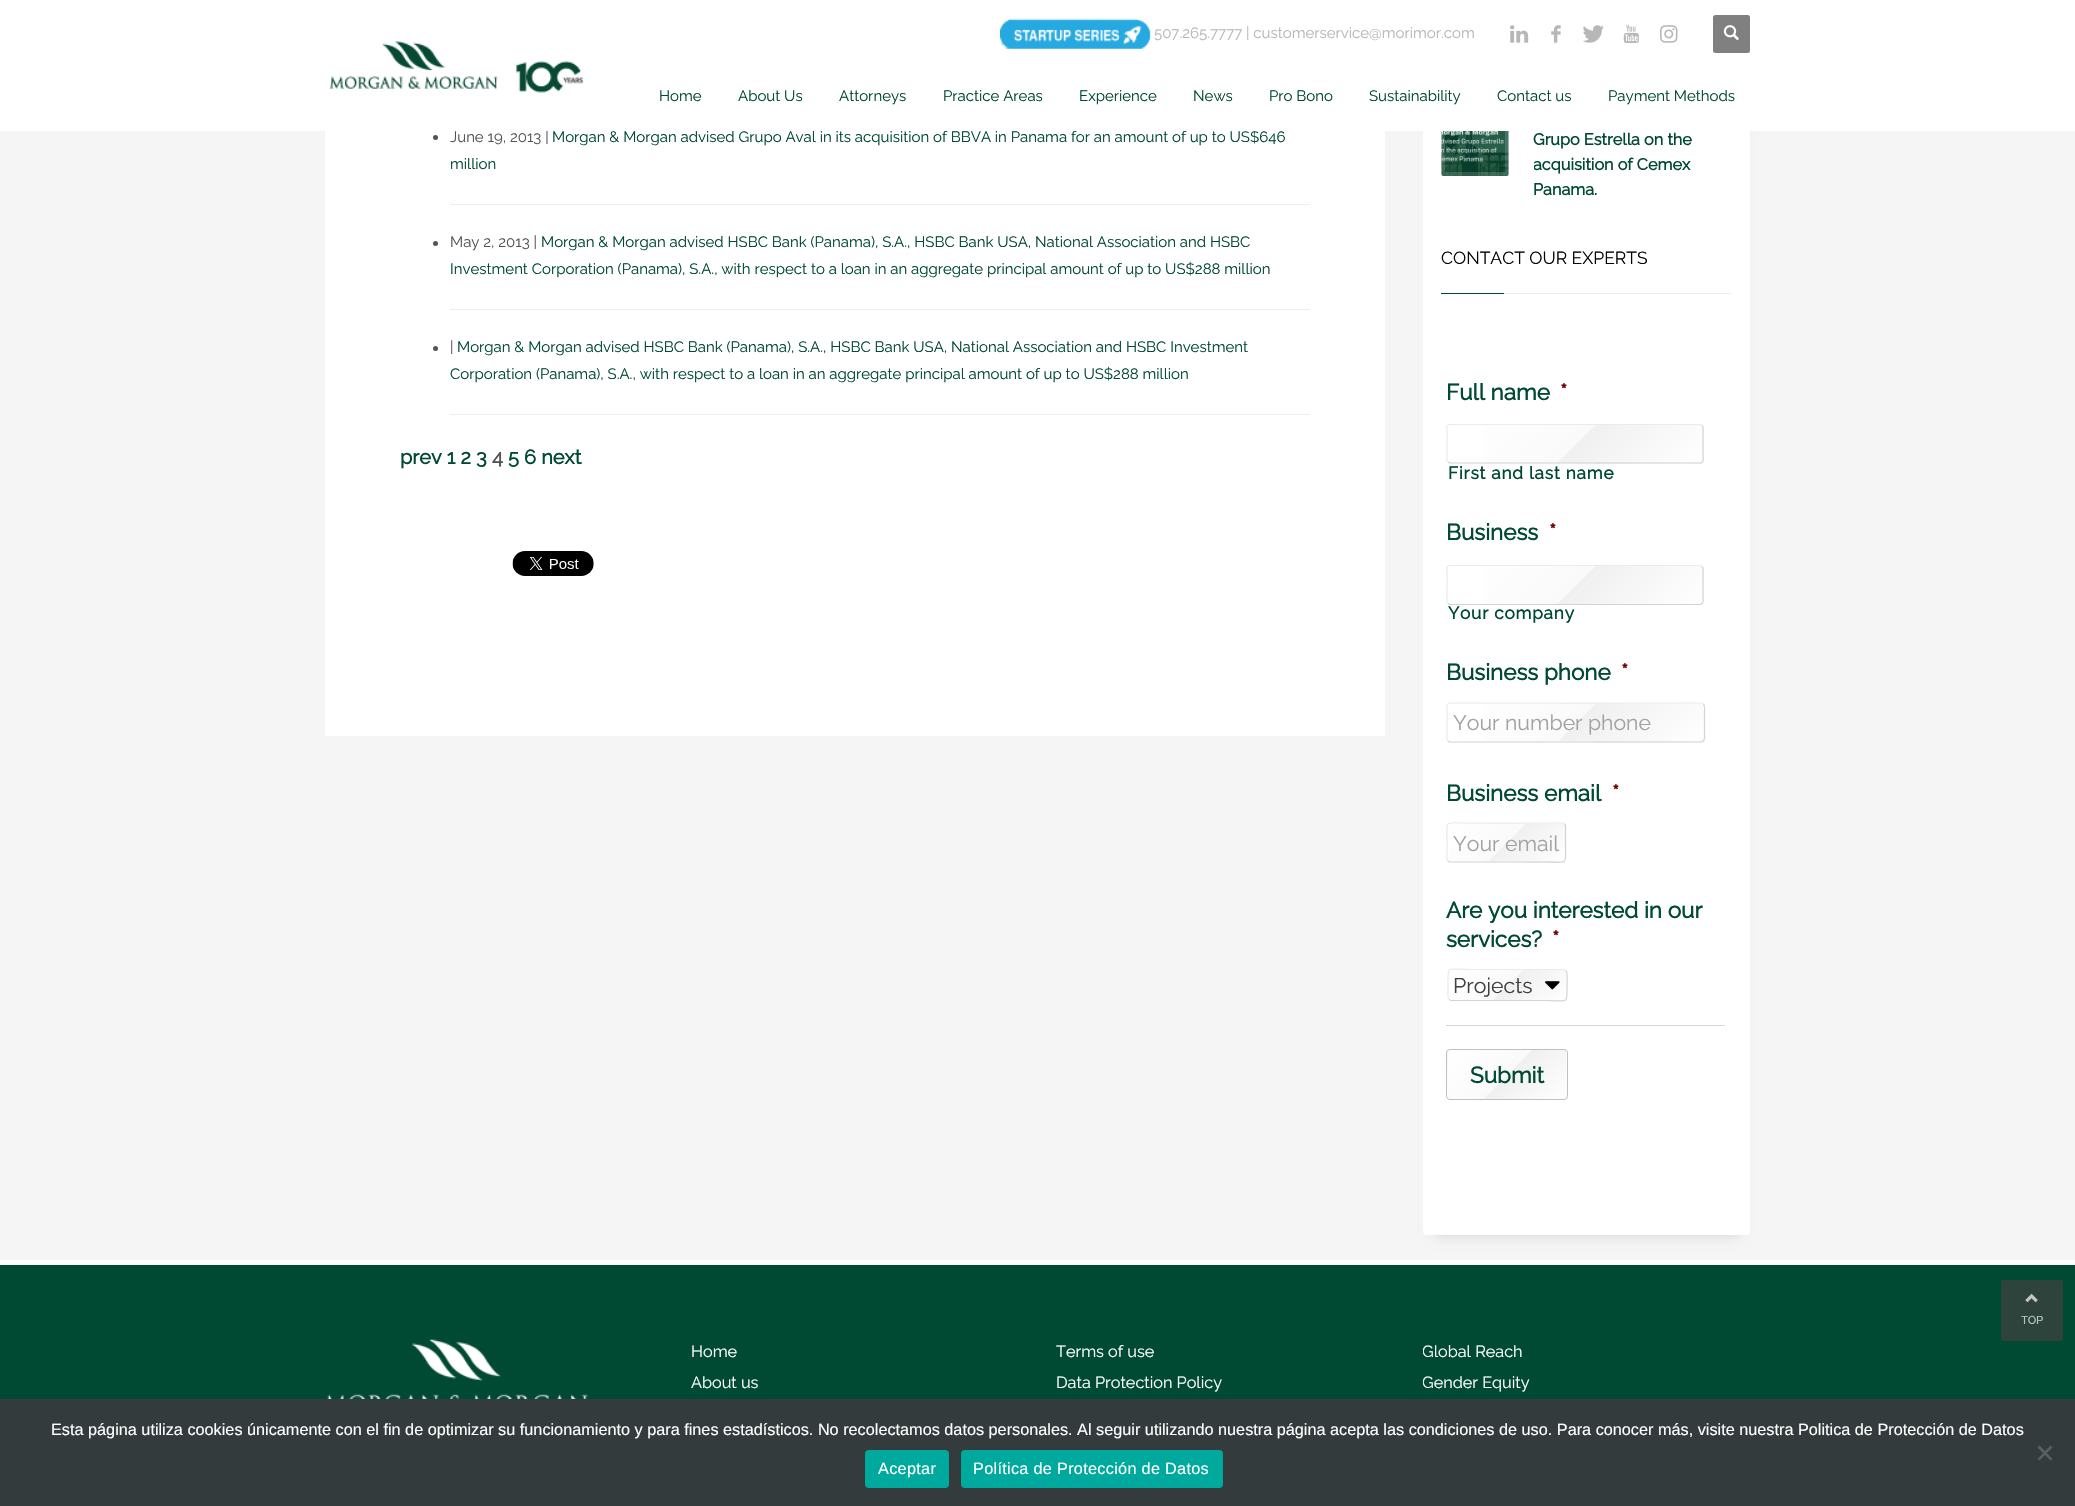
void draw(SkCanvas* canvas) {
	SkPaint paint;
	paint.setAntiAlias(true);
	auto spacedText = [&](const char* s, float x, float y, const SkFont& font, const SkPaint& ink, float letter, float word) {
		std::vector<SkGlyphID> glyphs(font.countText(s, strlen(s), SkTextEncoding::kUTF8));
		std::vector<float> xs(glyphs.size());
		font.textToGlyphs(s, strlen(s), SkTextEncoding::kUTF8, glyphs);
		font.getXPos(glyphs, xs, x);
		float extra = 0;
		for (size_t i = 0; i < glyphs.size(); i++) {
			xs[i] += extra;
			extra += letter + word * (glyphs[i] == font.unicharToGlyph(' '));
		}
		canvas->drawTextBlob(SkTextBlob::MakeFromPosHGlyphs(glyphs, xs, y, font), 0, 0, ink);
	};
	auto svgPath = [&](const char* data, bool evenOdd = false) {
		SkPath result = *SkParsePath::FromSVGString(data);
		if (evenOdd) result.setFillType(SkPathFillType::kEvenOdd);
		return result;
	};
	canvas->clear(0xfff5f5f5);
	paint.setColor(0xffffffff);
	canvas->drawRect(SkRect::MakeXYWH(325, 131, 1060, 605), paint);
	SkFont f1(fontMgr->matchFamilyStyle("Raleway", SkFontStyle(100, SkFontStyle::kNormal_Width, SkFontStyle::kUpright_Slant)), 15);
	f1.setSubpixel(true);
	paint.setColor(0xff535353);
	canvas->drawString("June 19, 2013 |", 450, 142, f1, paint);
	paint.setColor(0xff004933);
	canvas->drawString("Morgan & Morgan advised Grupo Aval in its acquisition of BBVA in Panama for an amount of up to US$646", 552, 142, f1, paint);
	paint.setColor(0x26000000);
	paint.setMaskFilter(SkMaskFilter::MakeBlur(kNormal_SkBlurStyle, 6));
	canvas->drawRect(SkRect::MakeXYWH(1435, -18, 303, 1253), paint);
	paint.setMaskFilter(nullptr);
	paint.setColor(0xffffffff);
	canvas->drawRoundRect(SkRect::MakeXYWH(1423, -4, 327, 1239), 4, 4, paint);
	canvas->drawImageRect(SkImages::DeferredFromEncodedData(SkData::MakeFromFileName("img10.png")), SkRect::MakeXYWH(1441, 131, 68, 45), SkSamplingOptions());
	paint.setStroke(true);
	paint.setStrokeWidth(4);
	paint.setColor(0x26ffffff);
	canvas->drawRoundRect(SkRect::MakeXYWH(1443, 111, 64, 63), 2, 2, paint);
	paint.setStroke(false);
	paint.setColor(0xffffffff);
	canvas->drawRect(SkRect::MakeXYWH(0, 0, 2075, 131), paint);
	canvas->drawImageRect(SkImages::DeferredFromEncodedData(SkData::MakeFromFileName("img1.png")), SkRect::MakeXYWH(329, 41, 255, 52), SkSamplingOptions());
	canvas->drawImageRect(SkImages::DeferredFromEncodedData(SkData::MakeFromFileName("img2.png")), SkRect::MakeXYWH(1000, 18, 151, 31), SkSamplingOptions());
	paint.setColor(0xffb7b7b7);
	canvas->drawString("507.265.7777 | customerservice@morimor.com", 1154, 38, f1, paint);
	canvas->drawImageRect(SkImages::DeferredFromEncodedData(SkData::MakeFromFileName("img3.png")), SkRect::MakeXYWH(1510, 25, 19, 18), SkSamplingOptions());
	canvas->drawImageRect(SkImages::DeferredFromEncodedData(SkData::MakeFromFileName("img4.png")), SkRect::MakeXYWH(1551, 25, 10, 18), SkSamplingOptions());
	canvas->drawImageRect(SkImages::DeferredFromEncodedData(SkData::MakeFromFileName("img5.png")), SkRect::MakeXYWH(1582, 25, 22, 18), SkSamplingOptions());
	canvas->drawImageRect(SkImages::DeferredFromEncodedData(SkData::MakeFromFileName("img6.png")), SkRect::MakeXYWH(1623, 24, 16, 19), SkSamplingOptions());
	canvas->drawImageRect(SkImages::DeferredFromEncodedData(SkData::MakeFromFileName("img7.png")), SkRect::MakeXYWH(1660, 25, 18, 18), SkSamplingOptions());
	paint.setColor(0xff808080);
	canvas->drawRoundRect(SkRect::MakeXYWH(1713, 15, 37, 38), 2.5, 2.5, paint);
	canvas->drawImageRect(SkImages::DeferredFromEncodedData(SkData::MakeFromFileName("img8.png")), SkRect::MakeXYWH(1723, 25, 16, 15), SkSamplingOptions());
	paint.setColor(0xff004933);
	canvas->drawString("Home", 659, 101, f1, paint);
	canvas->drawString("About Us", 738, 101, f1, paint);
	canvas->drawString("Attorneys", 839, 101, f1, paint);
	canvas->drawString("Practice Areas", 943, 101, f1, paint);
	canvas->drawString("Experience", 1079, 101, f1, paint);
	canvas->drawString("News", 1193, 101, f1, paint);
	canvas->drawString("Pro Bono", 1269, 101, f1, paint);
	canvas->drawString("Sustainability", 1369, 101, f1, paint);
	canvas->drawString("Contact us", 1497, 101, f1, paint);
	canvas->drawString("Payment Methods", 1608, 101, f1, paint);
	paint.setColor(0xff535353);
	canvas->drawCircle(435.5, 137.5, 2.5, paint);
	paint.setColor(0xff004933);
	canvas->drawString("million", 450, 169, f1, paint);
	paint.setColor(0xffeeeeee);
	canvas->drawRect(SkRect::MakeXYWH(450, 204, 860, 1), paint);
	paint.setColor(0xff535353);
	canvas->drawCircle(435.5, 243.5, 2.5, paint);
	canvas->drawString("May 2, 2013 |", 450, 247, f1, paint);
	paint.setColor(0xff004933);
	canvas->drawString("Morgan & Morgan advised HSBC Bank (Panama), S.A., HSBC Bank USA, National Association and HSBC", 541, 247, f1, paint);
	canvas->drawString("Investment Corporation (Panama), S.A., with respect to a loan in an aggregate principal amount of up to US$288 million", 450, 274, f1, paint);
	paint.setColor(0xffeeeeee);
	canvas->drawRect(SkRect::MakeXYWH(450, 309, 860, 1), paint);
	paint.setColor(0xff535353);
	canvas->drawCircle(435.5, 348.5, 2.5, paint);
	canvas->drawString("|", 450, 352, f1, paint);
	paint.setColor(0xff004933);
	canvas->drawString("Morgan & Morgan advised HSBC Bank (Panama), S.A., HSBC Bank USA, National Association and HSBC Investment", 457, 352, f1, paint);
	canvas->drawString("Corporation (Panama), S.A., with respect to a loan in an aggregate principal amount of up to US$288 million", 450, 379, f1, paint);
	paint.setColor(0xffeeeeee);
	canvas->drawRect(SkRect::MakeXYWH(450, 414, 860, 1), paint);
	SkFont f2(fontMgr->matchFamilyStyle("Raleway", SkFontStyle::Bold()), 20);
	f2.setSubpixel(true);
	paint.setColor(0xff004933);
	canvas->drawString("prev 1 2 3", 400, 464, f2, paint);
	paint.setColor(0xff535353);
	canvas->drawString("4", 492, 464, f2, paint);
	paint.setColor(0xff004933);
	canvas->drawString("5 6 next", 508, 464, f2, paint);
	canvas->drawImageRect(SkImages::DeferredFromEncodedData(SkData::MakeFromFileName("img9.png")), SkRect::MakeXYWH(512, 551, 82, 25), SkSamplingOptions());
	SkFont f3(fontMgr->matchFamilyStyle("Raleway", SkFontStyle::Bold()), 16.25);
	f3.setSubpixel(true);
	canvas->drawString("Grupo Estrella on the", 1533, 145, f3, paint);
	canvas->save();
	canvas->clipRect(SkRect::MakeXYWH(1534, 103, 197, 100));
	canvas->drawString("acquisition of Cemex", 1533, 170, f3, paint);
	canvas->restore();
	canvas->drawString("Panama.", 1533, 195, f3, paint);
	SkFont f4(fontMgr->matchFamilyStyle("Raleway", SkFontStyle(100, SkFontStyle::kNormal_Width, SkFontStyle::kUpright_Slant)), 17.5);
	f4.setSubpixel(true);
	paint.setColor(0xff050505);
	canvas->drawString("CONTACT OUR EXPERTS", 1441, 264, f4, paint);
	paint.setColor(0xff004933);
	canvas->drawRect(SkRect::MakeXYWH(1441, 293, 63, 1), paint);
	paint.setColor(0xffececec);
	canvas->drawRect(SkRect::MakeXYWH(1504, 293, 227, 1), paint);
	SkFont f5(fontMgr->matchFamilyStyle("Raleway", SkFontStyle::Bold()), 22.5);
	f5.setSubpixel(true);
	paint.setColor(0xff004933);
	canvas->drawString("Full name", 1446, 400, f5, paint);
	paint.setColor(0xff790000);
	canvas->drawString("*", 1560, 400, f5, paint);
	canvas->save();
	canvas->clipPath(svgPath("M1450 424H1700C1702 424 1704 426 1704 428V460C1704 462 1702 464 1700 464H1450C1448 464 1446 462 1446 460V428C1446 426 1448 424 1450 424Z"), true);
	{
		const SkColor colors[] = {0xffffffff, 0xfffafafa, 0xfff0f0f0, 0xffffffff};
		const float stops[] = {0, 0.5, 0.51, 1};
		const SkPoint ends[] = {{1502, 333}, {1648, 479}};
		paint.setShader(SkGradientShader::MakeLinear(ends, colors, stops, 4, SkTileMode::kClamp));
		paint.setAlpha(255);
	}
	canvas->drawRect(SkRect::MakeXYWH(1448, 424, 255, 1), paint);
	{
		const SkColor colors[] = {0xffffffff, 0xfffafafa, 0xfff0f0f0, 0xffffffff};
		const float stops[] = {0, 0.5, 0.51, 1};
		const SkPoint ends[] = {{1247, 371}, {1393, 517}};
		paint.setShader(SkGradientShader::MakeLinear(ends, colors, stops, 4, SkTileMode::kClamp));
		paint.setAlpha(255);
	}
	canvas->drawRect(SkRect::MakeXYWH(1446, 425, 2, 38), paint);
	canvas->restore();
	{
		const SkColor colors[] = {0xffffffff, 0xfffafafa, 0xfff0f0f0, 0xffffffff};
		const float stops[] = {0, 0.5, 0.51, 1};
		const SkPoint ends[] = {{1502, 371}, {1648, 517}};
		paint.setShader(SkGradientShader::MakeLinear(ends, colors, stops, 4, SkTileMode::kClamp));
		paint.setAlpha(255);
	}
	canvas->drawRect(SkRect::MakeXYWH(1484, 425, 219, 38), paint);
	canvas->save();
	canvas->clipPath(svgPath("M1450 424H1700C1702 424 1704 426 1704 428V460C1704 462 1702 464 1700 464H1450C1448 464 1446 462 1446 460V428C1446 426 1448 424 1450 424Z"), true);
	{
		const SkColor colors[] = {0xffffffff, 0xfffafafa, 0xfff0f0f0, 0xffffffff};
		const float stops[] = {0, 0.5, 0.51, 1};
		const SkPoint ends[] = {{1502, 408}, {1648, 554}};
		paint.setShader(SkGradientShader::MakeLinear(ends, colors, stops, 4, SkTileMode::kClamp));
		paint.setAlpha(255);
	}
	canvas->drawRect(SkRect::MakeXYWH(1448, 463, 255, 1), paint);
	canvas->restore();
	paint.setStroke(true);
	paint.setStrokeWidth(1.2);
	paint.setShader(nullptr);
	paint.setColor(0xffd3d3d3);
	canvas->drawPath(svgPath("M1702 425.5C1704 427 1703 431.5 1703 433V454.5C1703 457 1704.5 463 1700 463H1449.5L1448 462"), paint);
	paint.setColor(0xffebebeb);
	canvas->drawPath(svgPath("M1448 462C1446 460.5 1447 456 1447 454.5V433C1447 430.5 1445.5 424.5 1450 424.5H1700.5L1702 425.5"), paint);
	SkFont f6(fontMgr->matchFamilyStyle("Raleway", SkFontStyle::Bold()), 17.25);
	f6.setSubpixel(true);
	paint.setStroke(false);
	paint.setColor(0xff004933);
	spacedText("First and last name", 1448, 479, f6, paint, 0.8, 0);
	canvas->drawString("Business", 1446, 540, f5, paint);
	paint.setColor(0xff790000);
	canvas->drawString("*", 1549, 540, f5, paint);
	canvas->save();
	canvas->clipPath(svgPath("M1450 565H1700C1702 565 1704 567 1704 569V601C1704 603 1702 605 1700 605H1450C1448 605 1446 603 1446 601V569C1446 567 1448 565 1450 565Z"), true);
	{
		const SkColor colors[] = {0xffffffff, 0xfffafafa, 0xfff0f0f0, 0xffffffff};
		const float stops[] = {0, 0.5, 0.51, 1};
		const SkPoint ends[] = {{1502, 474}, {1648, 621}};
		paint.setShader(SkGradientShader::MakeLinear(ends, colors, stops, 4, SkTileMode::kClamp));
		paint.setAlpha(255);
	}
	canvas->drawRect(SkRect::MakeXYWH(1448, 565, 255, 1), paint);
	{
		const SkColor colors[] = {0xffffffff, 0xfffafafa, 0xfff0f0f0, 0xffffffff};
		const float stops[] = {0, 0.5, 0.51, 1};
		const SkPoint ends[] = {{1247, 512}, {1393, 658}};
		paint.setShader(SkGradientShader::MakeLinear(ends, colors, stops, 4, SkTileMode::kClamp));
		paint.setAlpha(255);
	}
	canvas->drawRect(SkRect::MakeXYWH(1446, 566, 2, 38), paint);
	canvas->restore();
	{
		const SkColor colors[] = {0xffffffff, 0xfffafafa, 0xfff0f0f0, 0xffffffff};
		const float stops[] = {0, 0.5, 0.51, 1};
		const SkPoint ends[] = {{1502, 512}, {1648, 658}};
		paint.setShader(SkGradientShader::MakeLinear(ends, colors, stops, 4, SkTileMode::kClamp));
		paint.setAlpha(255);
	}
	canvas->drawRect(SkRect::MakeXYWH(1484, 566, 219, 38), paint);
	paint.setStroke(true);
	paint.setShader(nullptr);
	paint.setColor(0xffd3d3d3);
	canvas->drawPath(svgPath("M1702 566.5C1704 568.5 1703 572.5 1703 574V596C1703 598 1704.5 604.5 1700 604.5H1449.5L1448 603.5"), paint);
	paint.setColor(0xffebebeb);
	canvas->drawPath(svgPath("M1448 603.5C1446 601.5 1447 597.5 1447 596V574C1447 572 1445.5 565.5 1450 565.5H1700.5L1702 566.5"), paint);
	paint.setStroke(false);
	paint.setColor(0xff004933);
	spacedText("Your company", 1448, 619, f6, paint, 0.8, 0);
	canvas->drawString("Business phone", 1446, 680, f5, paint);
	paint.setColor(0xff790000);
	canvas->drawString("*", 1621, 680, f5, paint);
	canvas->save();
	canvas->clipPath(svgPath("M1450 703H1701C1703 703 1705 705 1705 707V739C1705 741 1703 743 1701 743H1450C1448 743 1446 741 1446 739V707C1446 705 1448 703 1450 703Z"), true);
	{
		const SkColor colors[] = {0xffffffff, 0xfffafafa, 0xfff0f0f0, 0xffffffff};
		const float stops[] = {0, 0.5, 0.51, 1};
		const SkPoint ends[] = {{1502, 612}, {1649, 758}};
		paint.setShader(SkGradientShader::MakeLinear(ends, colors, stops, 4, SkTileMode::kClamp));
		paint.setAlpha(255);
	}
	canvas->drawRect(SkRect::MakeXYWH(1448, 703, 256, 1), paint);
	{
		const SkColor colors[] = {0xffffffff, 0xfffafafa, 0xfff0f0f0, 0xffffffff};
		const float stops[] = {0, 0.5, 0.51, 1};
		const SkPoint ends[] = {{1246, 649}, {1393, 796}};
		paint.setShader(SkGradientShader::MakeLinear(ends, colors, stops, 4, SkTileMode::kClamp));
		paint.setAlpha(255);
	}
	canvas->drawRect(SkRect::MakeXYWH(1446, 704, 2, 37), paint);
	canvas->restore();
	{
		const SkColor colors[] = {0xffffffff, 0xfffafafa, 0xfff0f0f0, 0xffffffff};
		const float stops[] = {0, 0.5, 0.51, 1};
		const SkPoint ends[] = {{1502, 649}, {1649, 796}};
		paint.setShader(SkGradientShader::MakeLinear(ends, colors, stops, 4, SkTileMode::kClamp));
		paint.setAlpha(255);
	}
	canvas->drawRect(SkRect::MakeXYWH(1484, 704, 220, 37), paint);
	canvas->save();
	canvas->clipPath(svgPath("M1450 703H1701C1703 703 1705 705 1705 707V739C1705 741 1703 743 1701 743H1450C1448 743 1446 741 1446 739V707C1446 705 1448 703 1450 703Z"), true);
	{
		const SkColor colors[] = {0xffffffff, 0xfffafafa, 0xfff0f0f0, 0xffffffff};
		const float stops[] = {0, 0.5, 0.51, 1};
		const SkPoint ends[] = {{1246, 687}, {1393, 833}};
		paint.setShader(SkGradientShader::MakeLinear(ends, colors, stops, 4, SkTileMode::kClamp));
		paint.setAlpha(255);
	}
	canvas->drawRect(SkRect::MakeXYWH(1446, 741, 2, 2), paint);
	{
		const SkColor colors[] = {0xffffffff, 0xfffafafa, 0xfff0f0f0, 0xffffffff};
		const float stops[] = {0, 0.5, 0.51, 1};
		const SkPoint ends[] = {{1502, 687}, {1649, 833}};
		paint.setShader(SkGradientShader::MakeLinear(ends, colors, stops, 4, SkTileMode::kClamp));
		paint.setAlpha(255);
	}
	canvas->drawRect(SkRect::MakeXYWH(1448, 741, 256, 2), paint);
	canvas->restore();
	paint.setStroke(true);
	paint.setShader(nullptr);
	paint.setColor(0xffd3d3d3);
	canvas->drawPath(svgPath("M1703.5 704C1705 706 1704.5 710 1704.5 711.5V733.5C1704.5 735.5 1705.5 742 1701 742H1449.5L1448 741"), paint);
	paint.setColor(0xffebebeb);
	canvas->drawPath(svgPath("M1448 741C1446 739 1447 735 1447 733.5V711.5C1447 709.5 1445.5 703 1450 703H1701.5L1703.5 704"), paint);
	SkFont f7(fontMgr->matchFamilyStyle("Raleway", SkFontStyle(100, SkFontStyle::kNormal_Width, SkFontStyle::kUpright_Slant)), 21.25);
	f7.setSubpixel(true);
	paint.setStroke(false);
	paint.setColor(0xffa2a2a2);
	canvas->drawString("Your number phone", 1453, 730, f7, paint);
	paint.setColor(0xff004933);
	canvas->drawString("Business email", 1446, 801, f5, paint);
	paint.setColor(0xff790000);
	canvas->drawString("*", 1612, 801, f5, paint);
	canvas->save();
	canvas->clipPath(svgPath("M1450 823H1562C1564 823 1566 825 1566 827V859C1566 861 1564 863 1562 863H1450C1448 863 1446 861 1446 859V827C1446 825 1448 823 1450 823Z"), true);
	{
		const SkColor colors[] = {0xffffffff, 0xfffafafa, 0xfff0f0f0, 0xffffffff};
		const float stops[] = {0, 0.5, 0.51, 1};
		const SkPoint ends[] = {{1468, 766}, {1545, 844}};
		paint.setShader(SkGradientShader::MakeLinear(ends, colors, stops, 4, SkTileMode::kClamp));
		paint.setAlpha(255);
	}
	canvas->drawRect(SkRect::MakeXYWH(1448, 823, 117, 1), paint);
	{
		const SkColor colors[] = {0xffffffff, 0xfffafafa, 0xfff0f0f0, 0xffffffff};
		const float stops[] = {0, 0.5, 0.51, 1};
		const SkPoint ends[] = {{1350, 804}, {1428, 881}};
		paint.setShader(SkGradientShader::MakeLinear(ends, colors, stops, 4, SkTileMode::kClamp));
		paint.setAlpha(255);
	}
	canvas->drawRect(SkRect::MakeXYWH(1446, 824, 2, 37), paint);
	canvas->restore();
	{
		const SkColor colors[] = {0xffffffff, 0xfffafafa, 0xfff0f0f0, 0xffffffff};
		const float stops[] = {0, 0.5, 0.51, 1};
		const SkPoint ends[] = {{1468, 804}, {1545, 881}};
		paint.setShader(SkGradientShader::MakeLinear(ends, colors, stops, 4, SkTileMode::kClamp));
		paint.setAlpha(255);
	}
	canvas->drawRect(SkRect::MakeXYWH(1450, 824, 115, 37), paint);
	canvas->save();
	canvas->clipPath(svgPath("M1450 823H1562C1564 823 1566 825 1566 827V859C1566 861 1564 863 1562 863H1450C1448 863 1446 861 1446 859V827C1446 825 1448 823 1450 823Z"), true);
	{
		const SkColor colors[] = {0xffffffff, 0xfffafafa, 0xfff0f0f0, 0xffffffff};
		const float stops[] = {0, 0.5, 0.51, 1};
		const SkPoint ends[] = {{1350, 841}, {1428, 919}};
		paint.setShader(SkGradientShader::MakeLinear(ends, colors, stops, 4, SkTileMode::kClamp));
		paint.setAlpha(255);
	}
	canvas->drawRect(SkRect::MakeXYWH(1446, 861, 2, 2), paint);
	{
		const SkColor colors[] = {0xffffffff, 0xfffafafa, 0xfff0f0f0, 0xffffffff};
		const float stops[] = {0, 0.5, 0.51, 1};
		const SkPoint ends[] = {{1468, 841}, {1545, 919}};
		paint.setShader(SkGradientShader::MakeLinear(ends, colors, stops, 4, SkTileMode::kClamp));
		paint.setAlpha(255);
	}
	canvas->drawRect(SkRect::MakeXYWH(1448, 861, 117, 2), paint);
	canvas->restore();
	paint.setStroke(true);
	paint.setShader(nullptr);
	paint.setColor(0xffd3d3d3);
	canvas->drawPath(svgPath("M1564.5 824C1566.5 826 1565.5 830 1565.5 831.5V842.5C1565.5 866.5 1569.5 862 1544 862H1450L1448 861"), paint);
	paint.setColor(0xffebebeb);
	canvas->drawPath(svgPath("M1448 861C1446 859 1447 855 1447 853.5V842.5C1447 818.5 1443 823 1469 823H1562.5L1564.5 824"), paint);
	paint.setStroke(false);
	paint.setColor(0xffa2a2a2);
	canvas->drawString("Your email", 1453, 851, f7, paint);
	paint.setColor(0xff004933);
	canvas->drawString("Are you interested in our", 1446, 918, f5, paint);
	canvas->drawString("services?", 1446, 947, f5, paint);
	paint.setColor(0xff790000);
	canvas->drawString("*", 1552, 947, f5, paint);
	canvas->save();
	canvas->clipPath(svgPath("M1452 969H1564C1566 969 1568 971 1568 973V997C1568 999 1566 1001 1564 1001H1452C1450 1001 1448 999 1448 997V973C1448 971 1450 969 1452 969Z"), true);
	{
		const SkColor colors[] = {0xffffffff, 0xfffafafa, 0xfff0f0f0, 0xffffffff};
		const float stops[] = {0, 0.5, 0.51, 1};
		const SkPoint ends[] = {{1471, 918}, {1544, 992}};
		paint.setShader(SkGradientShader::MakeLinear(ends, colors, stops, 4, SkTileMode::kClamp));
		paint.setAlpha(255);
	}
	canvas->drawRect(SkRect::MakeXYWH(1449, 969, 117, 1), paint);
	{
		const SkColor colors[] = {0xffffffff, 0xfffafafa, 0xfff0f0f0, 0xffffffff};
		const float stops[] = {0, 0.5, 0.51, 1};
		const SkPoint ends[] = {{1353, 948}, {1427, 1022}};
		paint.setShader(SkGradientShader::MakeLinear(ends, colors, stops, 4, SkTileMode::kClamp));
		paint.setAlpha(255);
	}
	canvas->drawRect(SkRect::MakeXYWH(1448, 970, 1, 30), paint);
	canvas->restore();
	{
		const SkColor colors[] = {0xffffffff, 0xfffafafa, 0xfff0f0f0, 0xffffffff};
		const float stops[] = {0, 0.5, 0.51, 1};
		const SkPoint ends[] = {{1471, 948}, {1544, 1022}};
		paint.setShader(SkGradientShader::MakeLinear(ends, colors, stops, 4, SkTileMode::kClamp));
		paint.setAlpha(255);
	}
	canvas->drawRect(SkRect::MakeXYWH(1456, 970, 110, 30), paint);
	canvas->save();
	canvas->clipPath(svgPath("M1452 969H1564C1566 969 1568 971 1568 973V997C1568 999 1566 1001 1564 1001H1452C1450 1001 1448 999 1448 997V973C1448 971 1450 969 1452 969Z"), true);
	{
		const SkColor colors[] = {0xffffffff, 0xfffafafa, 0xfff0f0f0, 0xffffffff};
		const float stops[] = {0, 0.5, 0.51, 1};
		const SkPoint ends[] = {{1471, 978}, {1544, 1052}};
		paint.setShader(SkGradientShader::MakeLinear(ends, colors, stops, 4, SkTileMode::kClamp));
		paint.setAlpha(255);
	}
	canvas->drawRect(SkRect::MakeXYWH(1449, 1000, 117, 1), paint);
	canvas->restore();
	canvas->drawImageRect(SkImages::DeferredFromEncodedData(SkData::MakeFromFileName("img11.png")), SkRect::MakeXYWH(1545, 981, 15, 9), SkSamplingOptions());
	paint.setStroke(true);
	paint.setShader(nullptr);
	paint.setColor(0xffd3d3d3);
	canvas->drawPath(svgPath("M1566 970.5C1568 972.5 1567 982 1567 985C1567 1005.5 1569 1000.5 1545 1000.5H1451L1449 999.5"), paint);
	paint.setColor(0xffebebeb);
	canvas->drawPath(svgPath("M1449 999.5C1447 997.5 1448 988 1448 985C1448 964.5 1446 969.5 1470 969.5H1564L1566 970.5"), paint);
	paint.setStroke(false);
	paint.setColor(0xff404040);
	canvas->drawString("Projects", 1453, 993, f7, paint);
	paint.setColor(0xffd6d6d6);
	canvas->drawRect(SkRect::MakeXYWH(1446, 1025, 279, 1), paint);
	canvas->save();
	canvas->clipPath(svgPath("M1450 1049H1564C1566 1049 1568 1051 1568 1053V1096C1568 1098 1566 1100 1564 1100H1450C1448 1100 1446 1098 1446 1096V1053C1446 1051 1448 1049 1450 1049Z"), true);
	{
		const SkColor colors[] = {0xffffffff, 0xfffafafa, 0xfff0f0f0, 0xffffffff};
		const float stops[] = {0, 0.5, 0.51, 1};
		const SkPoint ends[] = {{1346, 1033}, {1430, 1116}};
		paint.setShader(SkGradientShader::MakeLinear(ends, colors, stops, 4, SkTileMode::kClamp));
		paint.setAlpha(255);
	}
	canvas->drawRect(SkRect::MakeXYWH(1446, 1050, 2, 49), paint);
	canvas->restore();
	{
		const SkColor colors[] = {0xffffffff, 0xfffafafa, 0xfff0f0f0, 0xffffffff};
		const float stops[] = {0, 0.5, 0.51, 1};
		const SkPoint ends[] = {{1465, 1033}, {1549, 1116}};
		paint.setShader(SkGradientShader::MakeLinear(ends, colors, stops, 4, SkTileMode::kClamp));
		paint.setAlpha(255);
	}
	canvas->drawRect(SkRect::MakeXYWH(1448, 1050, 118, 49), paint);
	canvas->save();
	canvas->clipPath(svgPath("M1450 1049H1564C1566 1049 1568 1051 1568 1053V1096C1568 1098 1566 1100 1564 1100H1450C1448 1100 1446 1098 1446 1096V1053C1446 1051 1448 1049 1450 1049Z"), true);
	{
		const SkColor colors[] = {0xffffffff, 0xfffafafa, 0xfff0f0f0, 0xffffffff};
		const float stops[] = {0, 0.5, 0.51, 1};
		const SkPoint ends[] = {{1584, 1033}, {1668, 1116}};
		paint.setShader(SkGradientShader::MakeLinear(ends, colors, stops, 4, SkTileMode::kClamp));
		paint.setAlpha(255);
	}
	canvas->drawRect(SkRect::MakeXYWH(1566, 1050, 2, 49), paint);
	canvas->restore();
	paint.setStroke(true);
	paint.setStrokeWidth(1);
	paint.setShader(nullptr);
	paint.setColor(0xffc0c0c0);
	canvas->drawRoundRect(SkRect::MakeXYWH(1446.5, 1049.5, 121, 50), 3.5, 3.5, paint);
	paint.setStroke(false);
	paint.setColor(0xff004933);
	canvas->drawString("Submit", 1470, 1083, f5, paint);
	canvas->drawRect(SkRect::MakeXYWH(0, 1265, 2075, 134), paint);
	paint.setColor(0xffffffff);
	canvas->drawRect(SkRect::MakeXYWH(0, 1260, 2075, 5), paint);
	canvas->drawImageRect(SkImages::DeferredFromEncodedData(SkData::MakeFromFileName("img12.png")), SkRect::MakeXYWH(327, 1339, 261, 60), SkSamplingOptions());
	SkFont f8(fontMgr->matchFamilyStyle("Raleway", SkFontStyle(100, SkFontStyle::kNormal_Width, SkFontStyle::kUpright_Slant)), 16.25);
	f8.setSubpixel(true);
	canvas->drawString("Home", 691, 1357, f8, paint);
	canvas->drawString("About us", 691, 1388, f8, paint);
	canvas->drawString("Terms of use", 1056, 1357, f8, paint);
	canvas->drawString("Data Protection Policy", 1056, 1388, f8, paint);
	canvas->save();
	canvas->clipRect(SkRect::MakeXYWH(1423, 1340, 327, 61));
	canvas->drawString("Global Reach", 1422, 1357, f8, paint);
	canvas->drawString("Gender Equity", 1422, 1388, f8, paint);
	canvas->restore();
	paint.setColor(0xff2d433c);
	canvas->drawRoundRect(SkRect::MakeXYWH(2001, 1280, 62, 61), 2.5, 2.5, paint);
	canvas->drawImageRect(SkImages::DeferredFromEncodedData(SkData::MakeFromFileName("img13.png")), SkRect::MakeXYWH(2025, 1293, 13, 10), SkSamplingOptions());
	SkFont f9(fontMgr->matchFamilyStyle("Raleway", SkFontStyle::Bold()), 11);
	f9.setSubpixel(true);
	paint.setColor(0xffb3c8c2);
	canvas->drawString("TOP", 2021, 1324, f9, paint);
	paint.setColor(0xff343b3d);
	canvas->drawRect(SkRect::MakeXYWH(0, 1399, 2075, 107), paint);
	SkFont f10(fontMgr->matchFamilyStyle("Liberation Sans", SkFontStyle::Normal()), 16.25);
	f10.setSubpixel(true);
	paint.setColor(0xffffffff);
	canvas->drawString("Esta página utiliza cookies únicamente con el fin de optimizar su funcionamiento y para fines estadísticos. No recolectamos datos personales. Al seguir utilizando nuestra página acepta las condiciones de uso. Para conocer más, visite nuestra Politica de Protección de Datos", 51, 1435, f10, paint);
	paint.setColor(0xff5a5e5f);
	canvas->drawPath(svgPath("M2050.5 1445.5L2052.5 1447.5L2039.5 1460.5L2037.5 1459Z"), paint);
	canvas->drawPath(svgPath("M2037.5 1447.5L2039.5 1445.5L2052.5 1459L2050.5 1460.5Z"), paint);
	paint.setColor(0xff00a99d);
	canvas->drawRoundRect(SkRect::MakeXYWH(865, 1450, 84, 38), 4, 4, paint);
	paint.setColor(0xffffffff);
	spacedText("Aceptar", 878, 1474, f10, paint, 0.3, 0);
	paint.setColor(0xff00a99d);
	canvas->drawRoundRect(SkRect::MakeXYWH(961, 1450, 262, 38), 4, 4, paint);
	paint.setColor(0xffffffff);
	spacedText("Política de Protección de Datos", 973, 1474, f10, paint, 0.3, 0);
}
